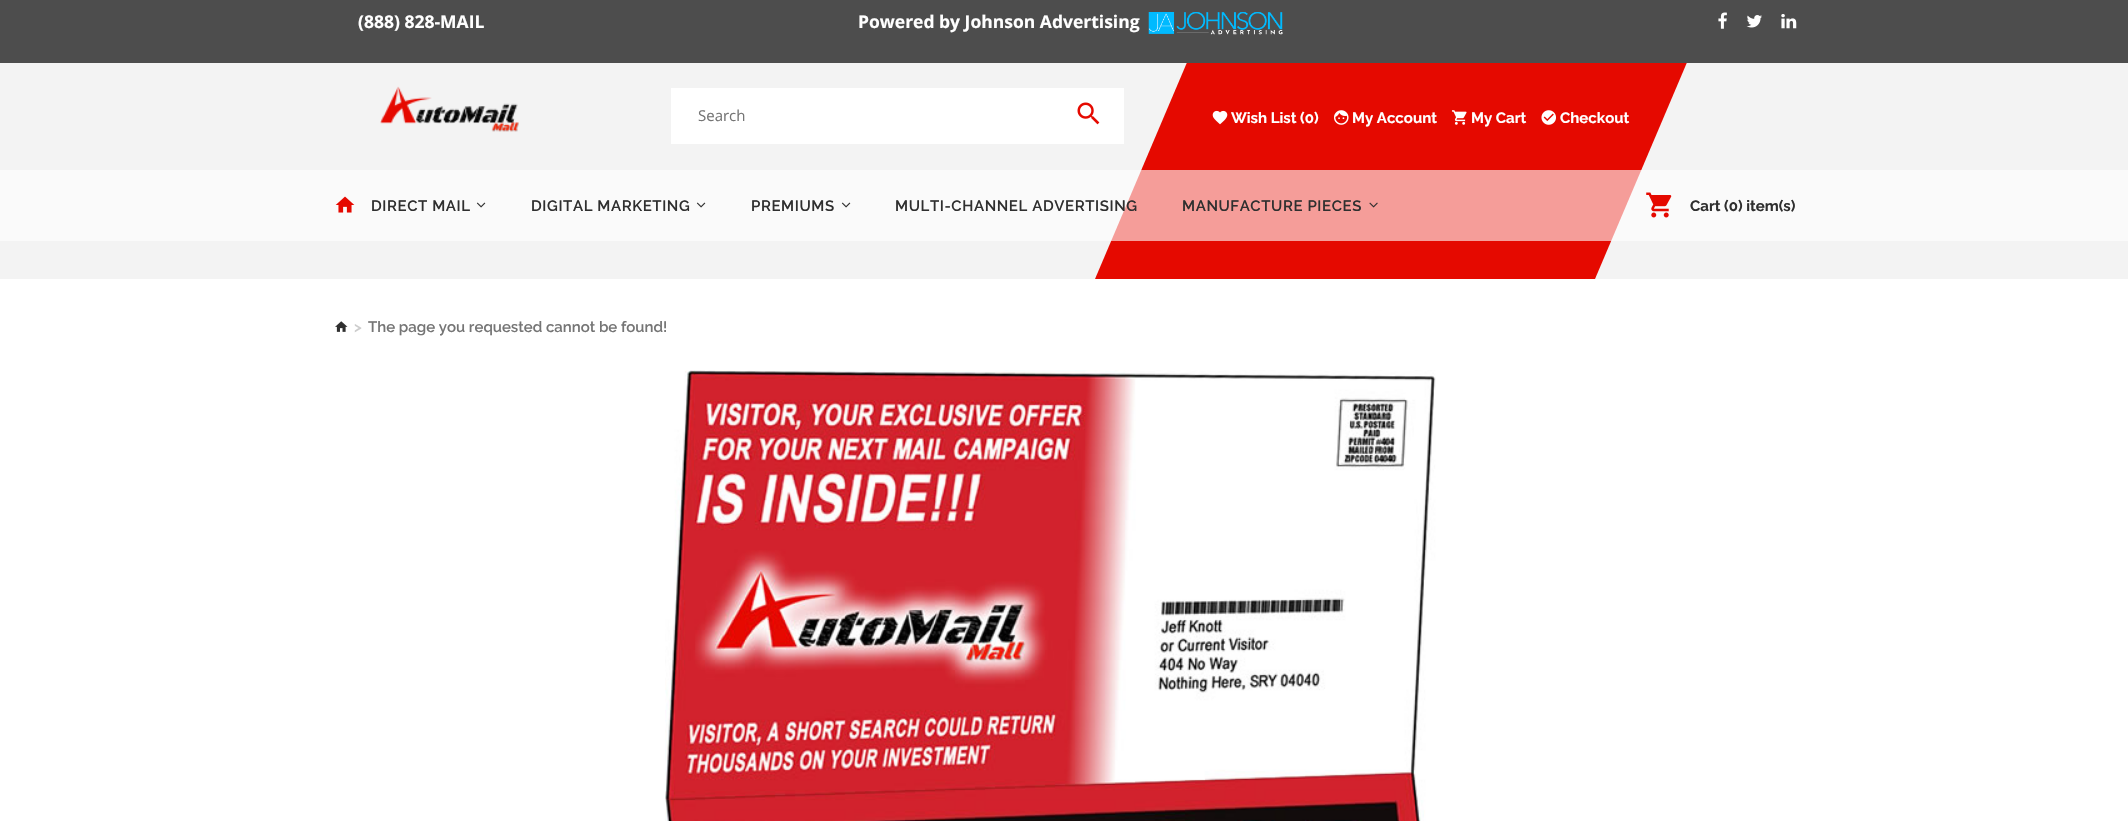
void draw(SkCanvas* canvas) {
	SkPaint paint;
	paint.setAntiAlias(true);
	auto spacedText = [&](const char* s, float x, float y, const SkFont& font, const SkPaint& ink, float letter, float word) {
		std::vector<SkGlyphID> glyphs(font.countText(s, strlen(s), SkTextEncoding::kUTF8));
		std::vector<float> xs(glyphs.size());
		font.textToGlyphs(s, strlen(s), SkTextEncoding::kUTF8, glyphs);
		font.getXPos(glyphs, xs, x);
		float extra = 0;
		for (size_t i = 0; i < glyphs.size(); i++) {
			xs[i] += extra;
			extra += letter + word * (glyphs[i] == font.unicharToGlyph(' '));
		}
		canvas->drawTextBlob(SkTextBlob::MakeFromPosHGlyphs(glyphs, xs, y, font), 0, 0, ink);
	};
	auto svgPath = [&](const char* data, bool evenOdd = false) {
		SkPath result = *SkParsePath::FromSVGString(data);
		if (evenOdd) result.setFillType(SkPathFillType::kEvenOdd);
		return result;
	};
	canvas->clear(0xffffffff);
	paint.setColor(0xfff3f3f3);
	canvas->drawRect(SkRect::MakeXYWH(0, 63, 2128, 216), paint);
	paint.setColor(0xffe50900);
	canvas->drawPath(svgPath("M1332-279H1832L1595 279H1095Z"), paint);
	paint.setColor(0xff4d4d4d);
	canvas->drawRect(SkRect::MakeXYWH(0, 0, 2128, 63), paint);
	SkFont f1(fontMgr->matchFamilyStyle("Open Sans", SkFontStyle::Bold()), 17.5);
	f1.setSubpixel(true);
	paint.setColor(0xffffffff);
	canvas->drawString("(888) 828-MAIL", 358, 28, f1, paint);
	canvas->drawString("Powered by Johnson Advertising", 858, 28, f1, paint);
	canvas->drawImageRect(SkImages::DeferredFromEncodedData(SkData::MakeFromFileName("img1.png")), SkRect::MakeXYWH(1148, 12, 135, 23), SkSamplingOptions());
	canvas->drawImageRect(SkImages::DeferredFromEncodedData(SkData::MakeFromFileName("img2.png")), SkRect::MakeXYWH(1718, 12, 9, 17), SkSamplingOptions());
	canvas->drawImageRect(SkImages::DeferredFromEncodedData(SkData::MakeFromFileName("img3.png")), SkRect::MakeXYWH(1746, 15, 16, 13), SkSamplingOptions());
	canvas->drawImageRect(SkImages::DeferredFromEncodedData(SkData::MakeFromFileName("img4.png")), SkRect::MakeXYWH(1781, 14, 16, 15), SkSamplingOptions());
	canvas->drawImageRect(SkImages::DeferredFromEncodedData(SkData::MakeFromFileName("img5.png")), SkRect::MakeXYWH(380, 86, 139, 46), SkSamplingOptions());
	canvas->drawRect(SkRect::MakeXYWH(671, 88, 453, 56), paint);
	SkFont f2(fontMgr->matchFamilyStyle("Open Sans", SkFontStyle::Normal()), 15);
	f2.setSubpixel(true);
	paint.setColor(0xff757575);
	canvas->drawString("Search", 698, 121, f2, paint);
	canvas->drawImageRect(SkImages::DeferredFromEncodedData(SkData::MakeFromFileName("img6.png")), SkRect::MakeXYWH(1077, 102, 23, 23), SkSamplingOptions());
	canvas->drawImageRect(SkImages::DeferredFromEncodedData(SkData::MakeFromFileName("img7.png")), SkRect::MakeXYWH(1212, 110, 16, 15), SkSamplingOptions());
	SkFont f3(fontMgr->matchFamilyStyle("Raleway", SkFontStyle::Bold()), 15);
	f3.setSubpixel(true);
	paint.setColor(0xffffffff);
	canvas->drawString("Wish List (0)", 1231, 123, f3, paint);
	canvas->drawImageRect(SkImages::DeferredFromEncodedData(SkData::MakeFromFileName("img8.png")), SkRect::MakeXYWH(1334, 110, 15, 15), SkSamplingOptions());
	canvas->drawString("My Account", 1352, 123, f3, paint);
	canvas->drawImageRect(SkImages::DeferredFromEncodedData(SkData::MakeFromFileName("img9.png")), SkRect::MakeXYWH(1451, 110, 16, 15), SkSamplingOptions());
	canvas->drawString("My Cart", 1471, 123, f3, paint);
	canvas->drawImageRect(SkImages::DeferredFromEncodedData(SkData::MakeFromFileName("img10.png")), SkRect::MakeXYWH(1541, 110, 15, 15), SkSamplingOptions());
	canvas->drawString("Checkout", 1560, 123, f3, paint);
	paint.setColor(0x99ffffff);
	canvas->drawRect(SkRect::MakeXYWH(0, 170, 2128, 71), paint);
	canvas->drawImageRect(SkImages::DeferredFromEncodedData(SkData::MakeFromFileName("img11.png")), SkRect::MakeXYWH(335, 196, 20, 17), SkSamplingOptions());
	SkFont f4(fontMgr->matchFamilyStyle("Raleway", SkFontStyle(600, SkFontStyle::kNormal_Width, SkFontStyle::kUpright_Slant)), 15);
	f4.setSubpixel(true);
	paint.setColor(0xff2f2f2f);
	spacedText("DIRECT MAIL", 371, 211, f4, paint, 0.6, 0);
	canvas->drawImageRect(SkImages::DeferredFromEncodedData(SkData::MakeFromFileName("img12.png")), SkRect::MakeXYWH(476, 202, 10, 6), SkSamplingOptions());
	spacedText("DIGITAL MARKETING", 531, 211, f4, paint, 0.6, 0);
	canvas->drawImageRect(SkImages::DeferredFromEncodedData(SkData::MakeFromFileName("img12.png")), SkRect::MakeXYWH(696, 202, 10, 6), SkSamplingOptions());
	spacedText("PREMIUMS", 751, 211, f4, paint, 0.6, 0);
	canvas->drawImageRect(SkImages::DeferredFromEncodedData(SkData::MakeFromFileName("img12.png")), SkRect::MakeXYWH(841, 202, 10, 6), SkSamplingOptions());
	spacedText("MULTI-CHANNEL ADVERTISING", 895, 211, f4, paint, 0.6, 0);
	spacedText("MANUFACTURE PIECES", 1182, 211, f4, paint, 0.6, 0);
	canvas->drawImageRect(SkImages::DeferredFromEncodedData(SkData::MakeFromFileName("img13.png")), SkRect::MakeXYWH(1369, 202, 9, 6), SkSamplingOptions());
	canvas->drawImageRect(SkImages::DeferredFromEncodedData(SkData::MakeFromFileName("img14.png")), SkRect::MakeXYWH(1646, 192, 26, 26), SkSamplingOptions());
	canvas->drawString("Cart (0) item(s)", 1690, 211, f3, paint);
	canvas->drawImageRect(SkImages::DeferredFromEncodedData(SkData::MakeFromFileName("img15.png")), SkRect::MakeXYWH(335, 321, 13, 11), SkSamplingOptions());
	paint.setColor(0xffcccccc);
	canvas->drawString(">", 354, 332, f4, paint);
	paint.setColor(0xff757575);
	canvas->drawString("The page you requested cannot be found!", 368, 332, f4, paint);
	canvas->drawImageRect(SkImages::DeferredFromEncodedData(SkData::MakeFromFileName("img16.png")), SkRect::MakeXYWH(665, 370, 771, 451), SkSamplingOptions());
}
